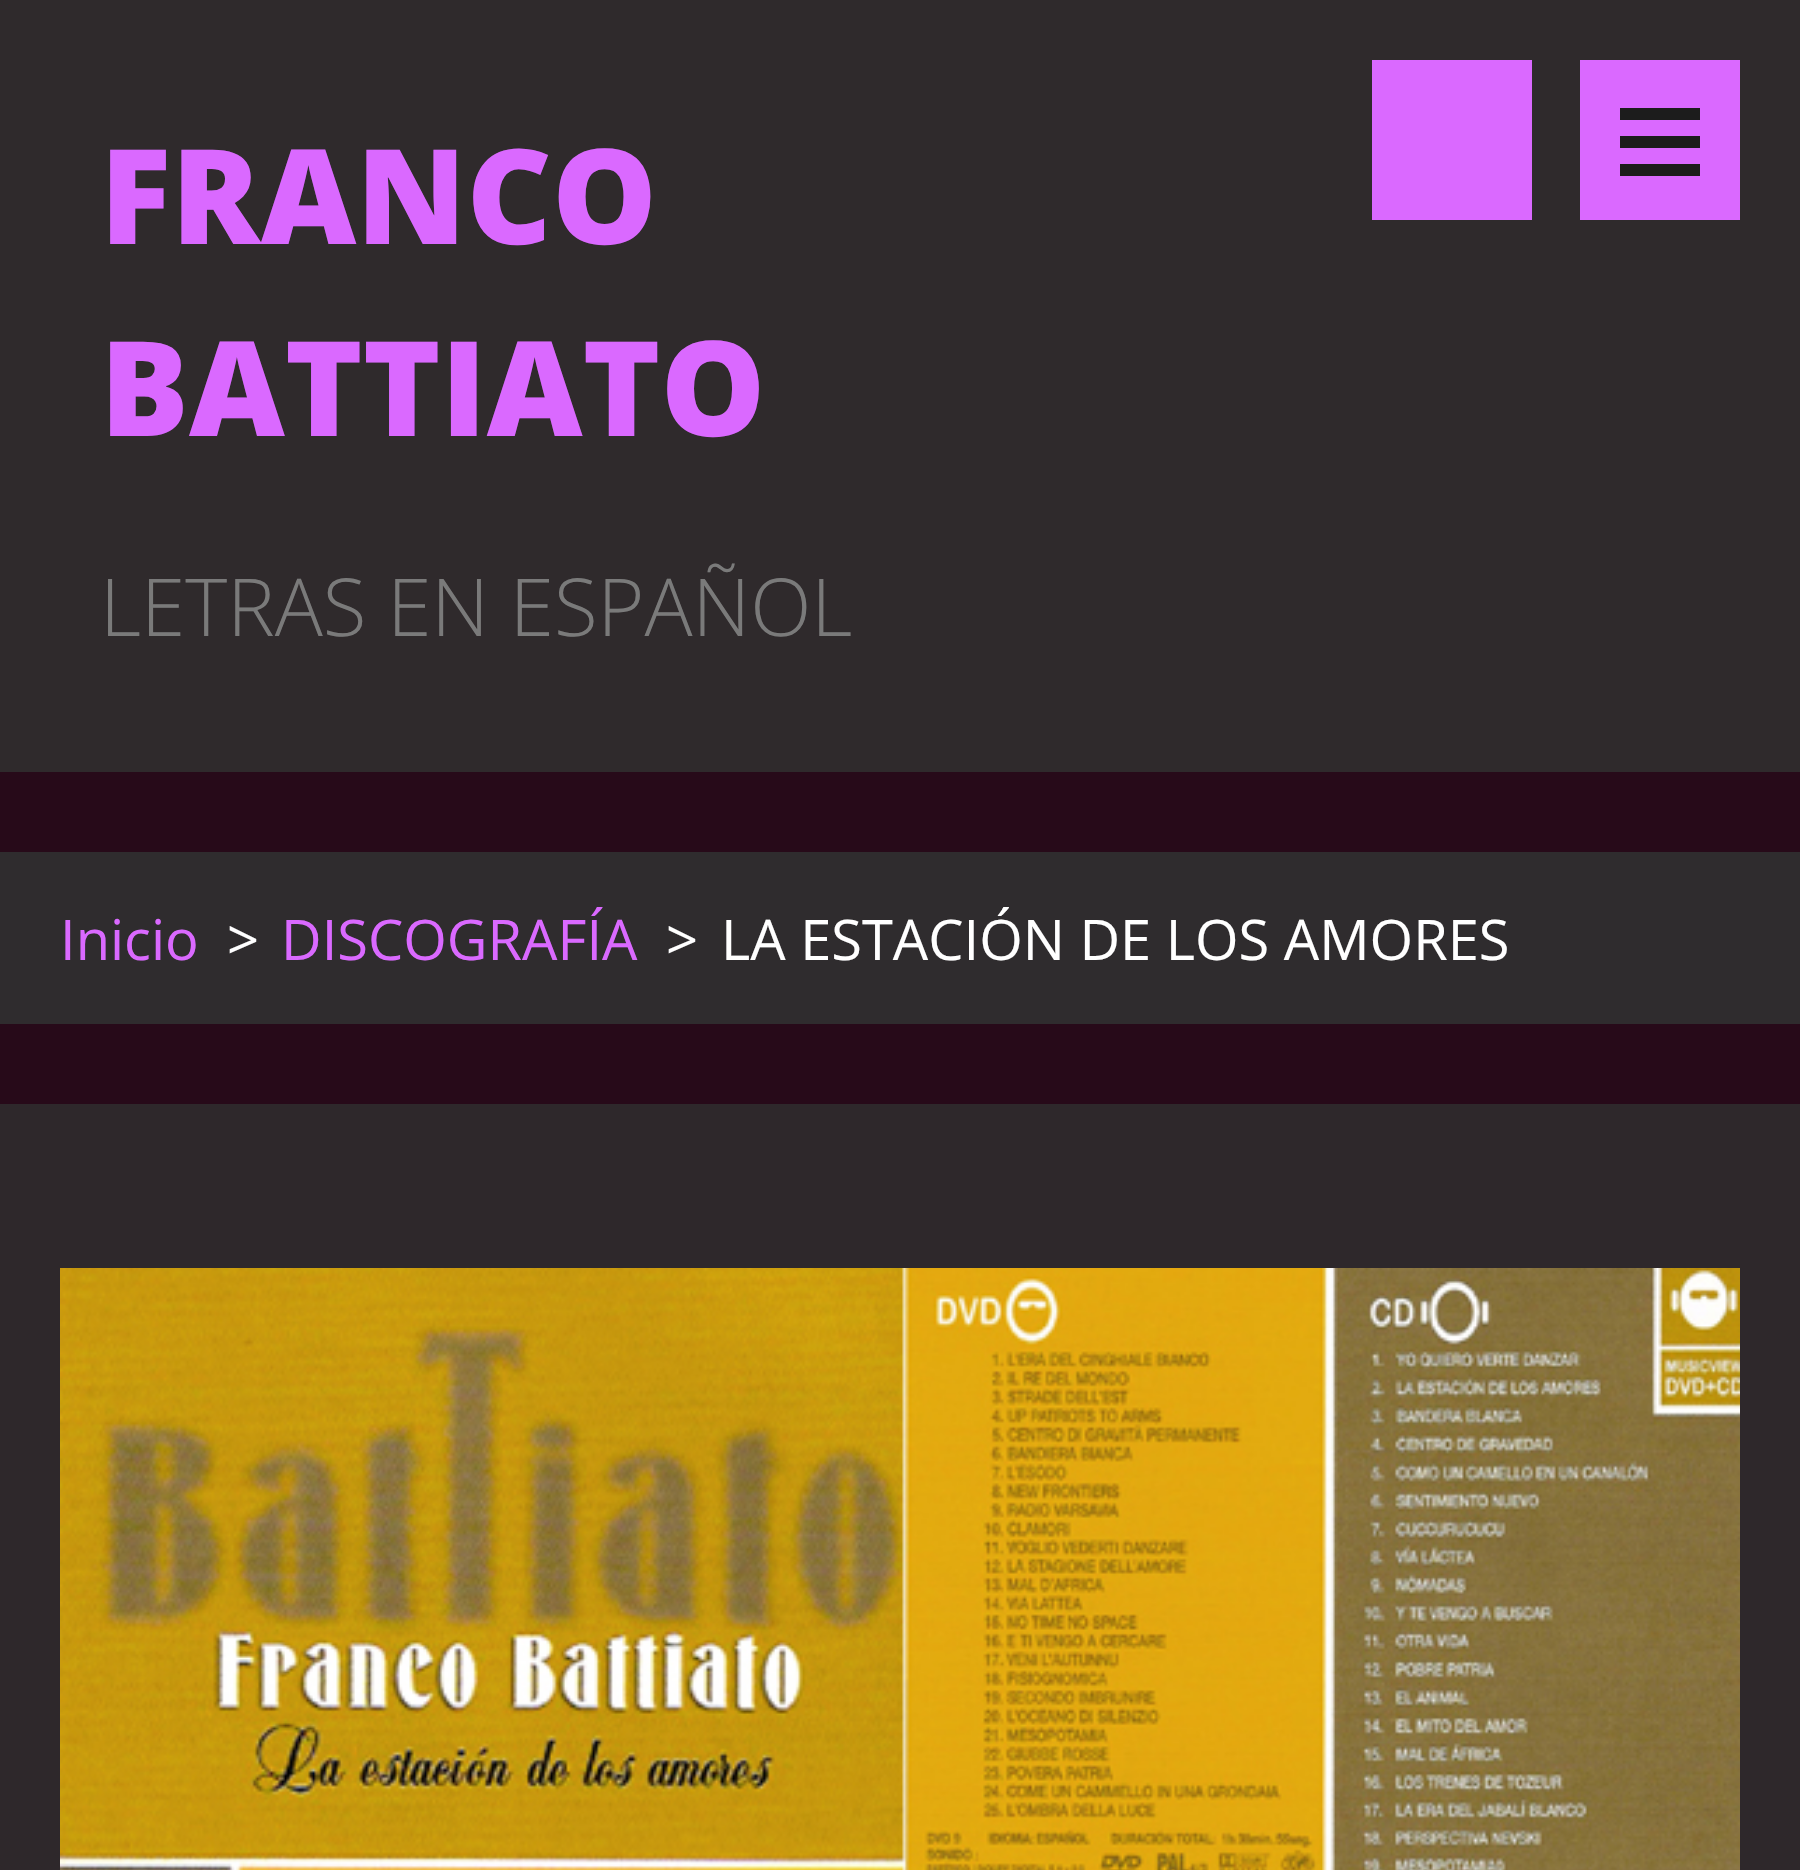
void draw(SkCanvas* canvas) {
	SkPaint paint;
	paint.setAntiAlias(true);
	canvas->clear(0xff270a19);
	paint.setColor(0xff2f2a2c);
	canvas->drawRect(SkRect::MakeXYWH(0, 0, 1800, 772), paint);
	SkFont f1(fontMgr->matchFamilyStyle("Open Sans", SkFontStyle(800, SkFontStyle::kNormal_Width, SkFontStyle::kUpright_Slant)), 132);
	f1.setSubpixel(true);
	paint.setColor(0xffda69ff);
	canvas->drawString("FRANCO", 100, 244, f1, paint);
	canvas->drawString("BATTIATO", 100, 436, f1, paint);
	canvas->drawRect(SkRect::MakeXYWH(1372, 60, 160, 160), paint);
	canvas->drawRect(SkRect::MakeXYWH(1580, 60, 160, 160), paint);
	paint.setColor(0xff1c1c1c);
	canvas->drawRect(SkRect::MakeXYWH(1620, 108, 80, 12), paint);
	canvas->drawRect(SkRect::MakeXYWH(1620, 136, 80, 12), paint);
	canvas->drawRect(SkRect::MakeXYWH(1620, 164, 80, 12), paint);
	SkFont f2(fontMgr->matchFamilyStyle("Open Sans", SkFontStyle(300, SkFontStyle::kNormal_Width, SkFontStyle::kUpright_Slant)), 80);
	f2.setSubpixel(true);
	paint.setColor(0xff7a7a7a);
	canvas->drawString("LETRAS EN ESPAÑOL", 100, 636, f2, paint);
	paint.setColor(0xff2f2c2e);
	canvas->drawRect(SkRect::MakeXYWH(0, 852, 1800, 172), paint);
	SkFont f3(fontMgr->matchFamilyStyle("Open Sans", SkFontStyle::Normal()), 56);
	f3.setSubpixel(true);
	paint.setColor(0xffda69ff);
	canvas->drawString("Inicio", 60, 960, f3, paint);
	paint.setColor(0xffffffff);
	canvas->drawString(">", 227, 960, f3, paint);
	paint.setColor(0xffda69ff);
	canvas->drawString("DISCOGRAFÍA", 281, 960, f3, paint);
	paint.setColor(0xffffffff);
	canvas->drawString(">", 666, 960, f3, paint);
	canvas->drawString("LA ESTACIÓN DE LOS AMORES", 721, 960, f3, paint);
	paint.setColor(0xff2e282b);
	canvas->drawRect(SkRect::MakeXYWH(0, 1104, 1800, 766), paint);
	canvas->drawImageRect(SkImages::DeferredFromEncodedData(SkData::MakeFromFileName("img1.png")), SkRect::MakeXYWH(60, 1268, 1680, 602), SkSamplingOptions());
}
